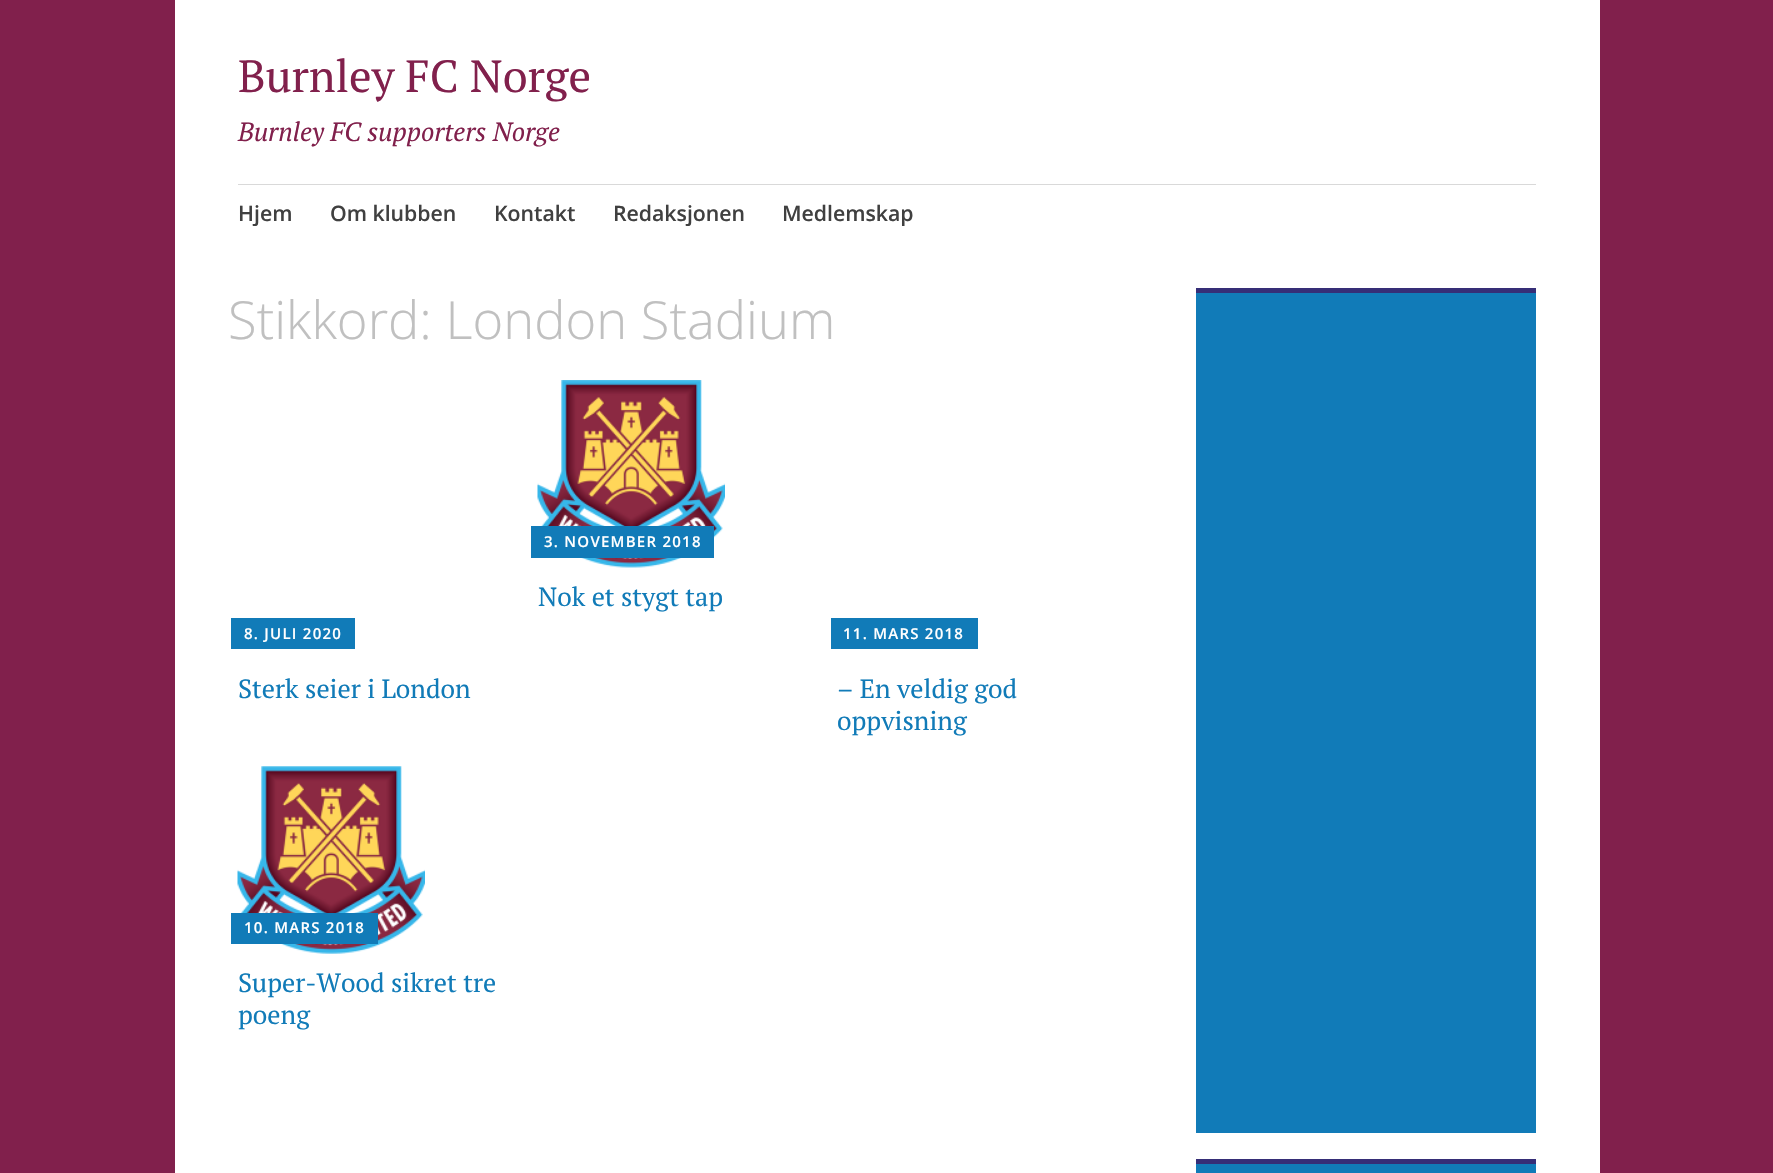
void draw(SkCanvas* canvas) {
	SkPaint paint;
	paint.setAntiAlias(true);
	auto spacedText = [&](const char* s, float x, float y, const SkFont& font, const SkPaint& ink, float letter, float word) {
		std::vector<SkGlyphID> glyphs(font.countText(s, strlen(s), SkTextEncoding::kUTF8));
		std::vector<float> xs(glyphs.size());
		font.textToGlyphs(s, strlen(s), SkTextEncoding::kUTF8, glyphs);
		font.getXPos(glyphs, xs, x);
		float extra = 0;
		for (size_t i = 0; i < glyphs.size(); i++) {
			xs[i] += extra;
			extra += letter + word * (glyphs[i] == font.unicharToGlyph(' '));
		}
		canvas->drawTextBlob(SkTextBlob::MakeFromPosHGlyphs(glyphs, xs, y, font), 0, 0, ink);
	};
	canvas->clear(0xff81204c);
	paint.setColor(0xffffffff);
	canvas->drawRect(SkRect::MakeXYWH(175, 0, 1425, 1173), paint);
	SkFont f1(fontMgr->matchFamilyStyle("PT Serif", SkFontStyle::Normal()), 45);
	f1.setSubpixel(true);
	paint.setColor(0xff81204c);
	canvas->drawString("Burnley FC Norge", 238, 92, f1, paint);
	SkFont f2(fontMgr->matchFamilyStyle("PT Serif", SkFontStyle::Italic()), 26.25);
	f2.setSubpixel(true);
	canvas->drawString("Burnley FC supporters Norge", 238, 141, f2, paint);
	paint.setColor(0xffd9d9d9);
	canvas->drawRect(SkRect::MakeXYWH(238, 184, 1298, 1), paint);
	SkFont f3(fontMgr->matchFamilyStyle("Open Sans", SkFontStyle(600, SkFontStyle::kNormal_Width, SkFontStyle::kUpright_Slant)), 21.25);
	f3.setSubpixel(true);
	paint.setColor(0xff404040);
	canvas->drawString("Hjem", 238, 221, f3, paint);
	canvas->drawString("Om klubben", 330, 221, f3, paint);
	canvas->drawString("Kontakt", 494, 221, f3, paint);
	canvas->drawString("Redaksjonen", 613, 221, f3, paint);
	canvas->drawString("Medlemskap", 782, 221, f3, paint);
	SkFont f4(fontMgr->matchFamilyStyle("Open Sans", SkFontStyle(300, SkFontStyle::kNormal_Width, SkFontStyle::kUpright_Slant)), 52.5);
	f4.setSubpixel(true);
	paint.setColor(0xffc0c0c0);
	canvas->drawString("Stikkord: London Stadium", 228, 339, f4, paint);
	canvas->drawImageRect(SkImages::DeferredFromEncodedData(SkData::MakeFromFileName("img1.png")), SkRect::MakeXYWH(537, 380, 188, 188), SkSamplingOptions());
	paint.setColor(0xff117bb8);
	canvas->drawRect(SkRect::MakeXYWH(531, 526, 183, 32), paint);
	SkFont f5(fontMgr->matchFamilyStyle("Open Sans", SkFontStyle(600, SkFontStyle::kNormal_Width, SkFontStyle::kUpright_Slant)), 15);
	f5.setSubpixel(true);
	paint.setColor(0xffffffff);
	spacedText("3. NOVEMBER 2018", 544, 547, f5, paint, 1.25, 0);
	SkFont f6(fontMgr->matchFamilyStyle("PT Serif", SkFontStyle::Normal()), 26.25);
	f6.setSubpixel(true);
	paint.setColor(0xff117bb8);
	canvas->drawString("Nok et stygt tap", 538, 606, f6, paint);
	canvas->drawRect(SkRect::MakeXYWH(231, 618, 124, 31), paint);
	paint.setColor(0xffffffff);
	spacedText("8. JULI 2020", 244, 639, f5, paint, 1.25, 0);
	paint.setColor(0xff117bb8);
	canvas->drawString("Sterk seier i London", 238, 698, f6, paint);
	canvas->drawRect(SkRect::MakeXYWH(831, 618, 147, 31), paint);
	paint.setColor(0xffffffff);
	spacedText("11. MARS 2018", 843, 639, f5, paint, 1.25, 0);
	paint.setColor(0xff117bb8);
	canvas->drawString("– En veldig god", 837, 698, f6, paint);
	canvas->drawString("oppvisning", 837, 730, f6, paint);
	canvas->drawImageRect(SkImages::DeferredFromEncodedData(SkData::MakeFromFileName("img2.png")), SkRect::MakeXYWH(237, 766, 188, 188), SkSamplingOptions());
	canvas->drawRect(SkRect::MakeXYWH(231, 913, 147, 31), paint);
	paint.setColor(0xffffffff);
	spacedText("10. MARS 2018", 244, 933, f5, paint, 1.25, 0);
	paint.setColor(0xff117bb8);
	canvas->drawString("Super-Wood sikret tre", 238, 992, f6, paint);
	canvas->drawString("poeng", 238, 1024, f6, paint);
	canvas->drawRect(SkRect::MakeXYWH(1196, 293, 340, 840), paint);
	paint.setColor(0xff362e77);
	canvas->drawRect(SkRect::MakeXYWH(1196, 288, 340, 5), paint);
	paint.setColor(0xff117bb8);
	canvas->drawRect(SkRect::MakeXYWH(1196, 1164, 340, 9), paint);
	paint.setColor(0xff362e77);
	canvas->drawRect(SkRect::MakeXYWH(1196, 1159, 340, 5), paint);
}
